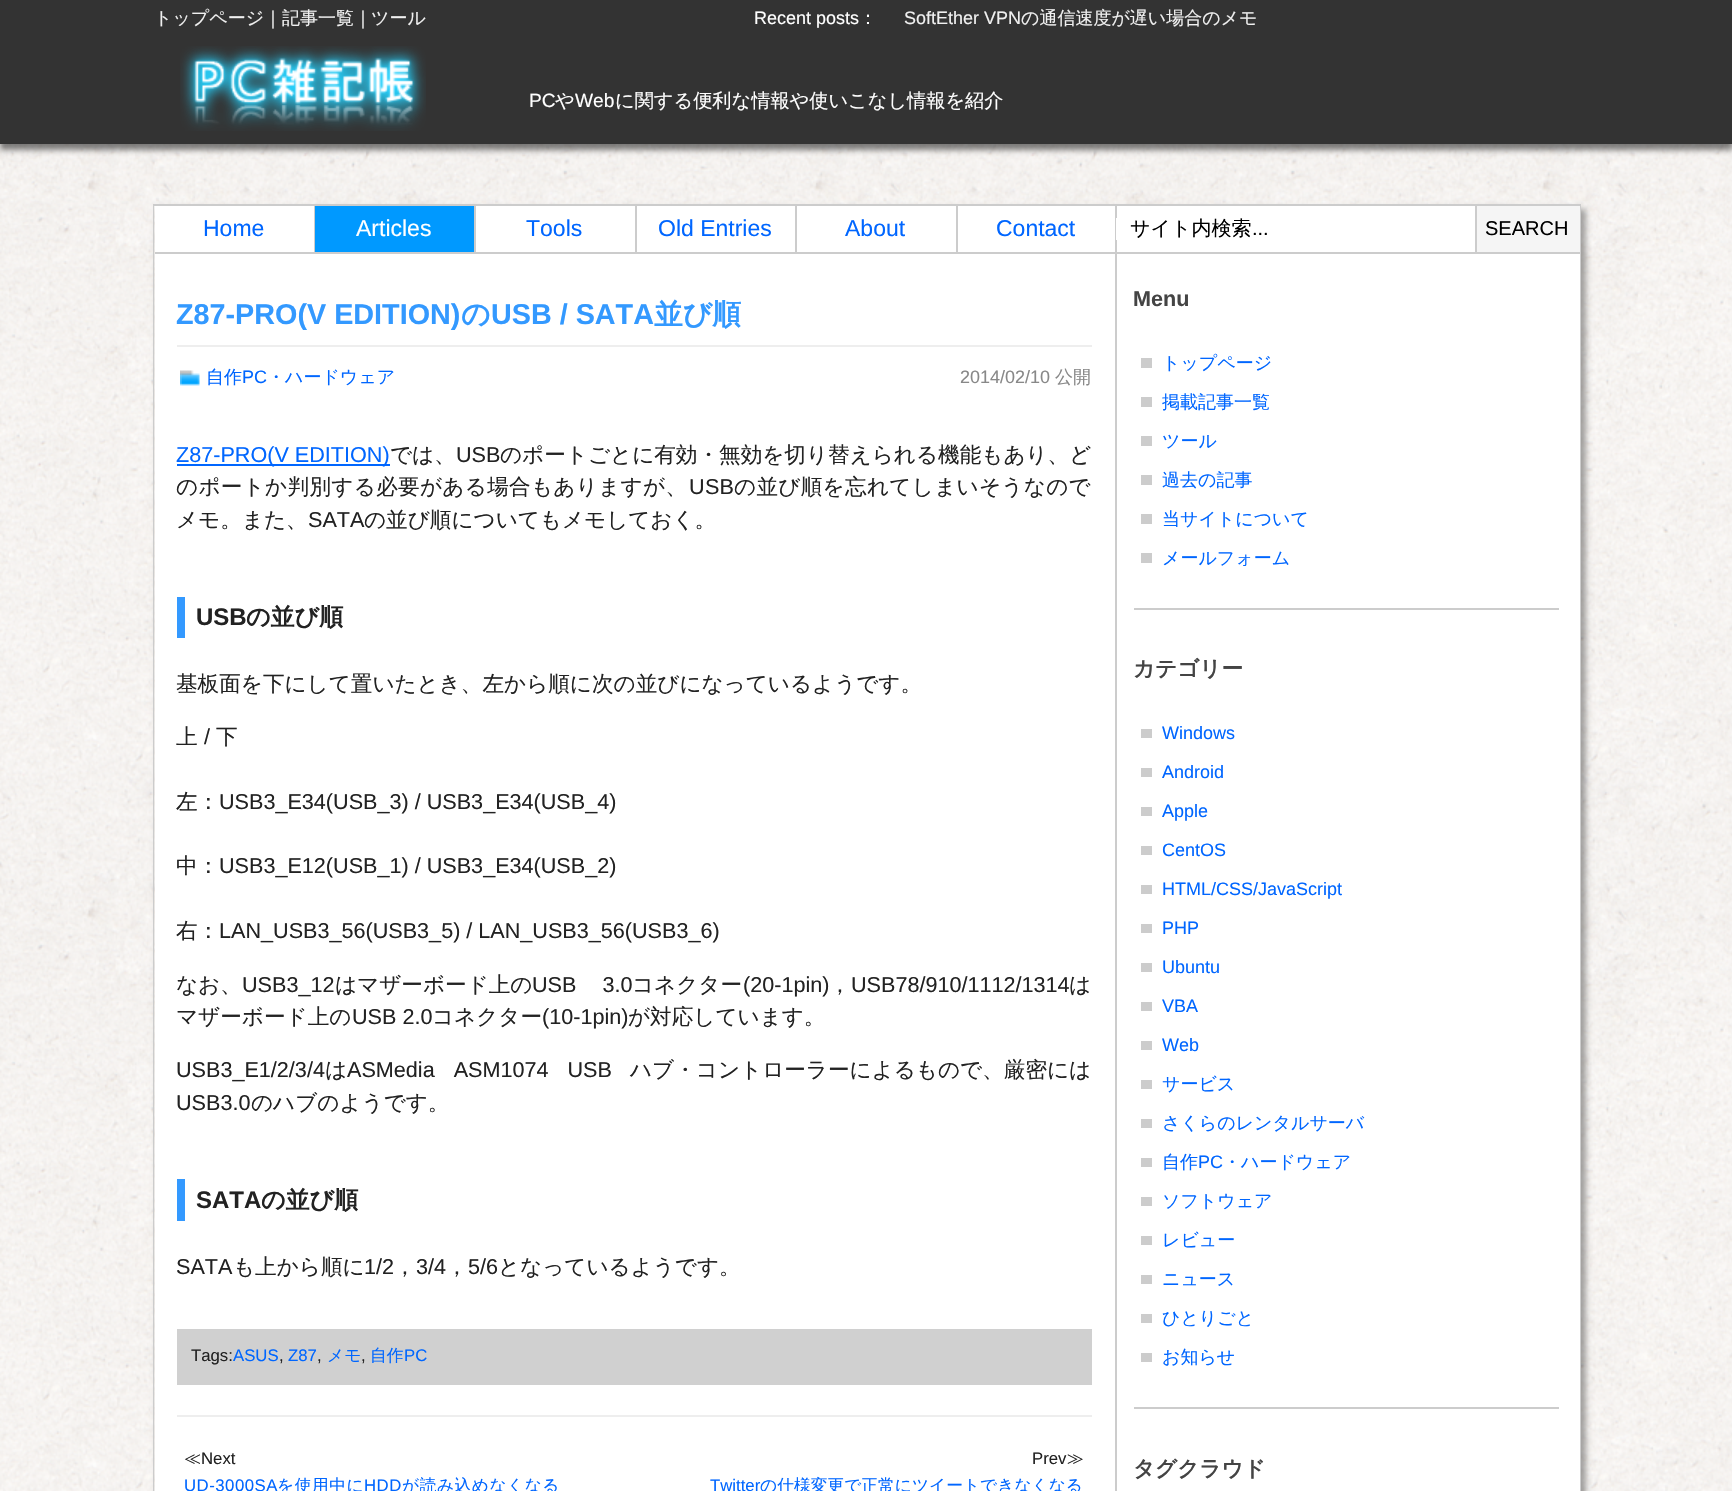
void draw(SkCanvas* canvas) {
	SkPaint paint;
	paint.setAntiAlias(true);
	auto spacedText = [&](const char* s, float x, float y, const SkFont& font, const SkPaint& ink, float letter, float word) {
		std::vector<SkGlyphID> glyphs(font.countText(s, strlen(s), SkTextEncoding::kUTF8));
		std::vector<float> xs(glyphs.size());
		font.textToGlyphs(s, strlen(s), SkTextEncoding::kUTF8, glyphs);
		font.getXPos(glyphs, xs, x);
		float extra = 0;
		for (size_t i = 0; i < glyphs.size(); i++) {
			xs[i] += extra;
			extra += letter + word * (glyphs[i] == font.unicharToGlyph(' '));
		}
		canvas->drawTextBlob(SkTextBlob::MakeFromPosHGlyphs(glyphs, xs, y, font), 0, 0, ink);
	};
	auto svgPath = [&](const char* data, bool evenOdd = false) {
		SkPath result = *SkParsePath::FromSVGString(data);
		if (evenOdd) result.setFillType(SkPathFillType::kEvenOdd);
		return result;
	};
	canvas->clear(0xffffffff);
	canvas->drawImageRect(SkImages::DeferredFromEncodedData(SkData::MakeFromFileName("img1.png")), SkRect::MakeXYWH(0, 144, 1732, 1347), SkSamplingOptions());
	paint.setColor(0x80000000);
	paint.setMaskFilter(SkMaskFilter::MakeBlur(kNormal_SkBlurStyle, 3));
	canvas->drawRect(SkRect::MakeXYWH(0, 6, 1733, 144), paint);
	paint.setMaskFilter(nullptr);
	paint.setColor(0xff333333);
	canvas->drawRect(SkRect::MakeXYWH(0, 0, 1732, 144), paint);
	SkFont f1(fontMgr->matchFamilyStyle("WenQuanYi Zen Hei", SkFontStyle(500, SkFontStyle::kNormal_Width, SkFontStyle::kUpright_Slant)), 18);
	f1.setSubpixel(true);
	paint.setColor(0xfff0f0f0);
	canvas->drawString("トップページ", 154, 24, f1, paint);
	paint.setColor(0xffffffff);
	canvas->drawString("｜", 264, 24, f1, paint);
	paint.setColor(0xfff0f0f0);
	canvas->drawString("記事一覧", 282, 24, f1, paint);
	paint.setColor(0xffffffff);
	canvas->drawString("｜", 354, 24, f1, paint);
	paint.setColor(0xfff0f0f0);
	canvas->drawString("ツール", 371, 24, f1, paint);
	SkFont f2(fontMgr->matchFamilyStyle("Liberation Sans", SkFontStyle::Normal()), 18);
	f2.setSubpixel(true);
	paint.setColor(0xffffffff);
	canvas->drawString("Recent posts", 754, 24, f2, paint);
	canvas->drawString("：", 859, 24, f1, paint);
	paint.setColor(0xfff0f0f0);
	canvas->drawString("SoftEther VPN", 904, 24, f2, paint);
	canvas->drawString("の通信速度が遅い場合のメモ", 1021, 24, f1, paint);
	canvas->drawImageRect(SkImages::DeferredFromEncodedData(SkData::MakeFromFileName("img2.png")), SkRect::MakeXYWH(180, 46, 246, 85), SkSamplingOptions());
	SkFont f3(fontMgr->matchFamilyStyle("Liberation Sans", SkFontStyle::Normal()), 19.2);
	f3.setSubpixel(true);
	paint.setColor(0xffffffff);
	canvas->drawString("PC", 529, 107, f3, paint);
	SkFont f4(fontMgr->matchFamilyStyle("WenQuanYi Zen Hei", SkFontStyle(500, SkFontStyle::kNormal_Width, SkFontStyle::kUpright_Slant)), 19.2);
	f4.setSubpixel(true);
	canvas->drawString("や", 555, 107, f4, paint);
	canvas->drawString("Web", 575, 107, f3, paint);
	canvas->drawString("に関する便利な情報や使いこなし情報を紹介", 615, 107, f4, paint);
	paint.setColor(0x59000000);
	paint.setMaskFilter(SkMaskFilter::MakeBlur(kNormal_SkBlurStyle, 3));
	canvas->drawRect(SkRect::MakeXYWH(158, 209, 1428, 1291), paint);
	paint.setMaskFilter(nullptr);
	paint.setColor(0xffffffff);
	canvas->drawRect(SkRect::MakeXYWH(155, 206, 1425, 1285), paint);
	paint.setColor(0xffcccccc);
	canvas->drawRect(SkRect::MakeXYWH(153, 204, 1428, 2), paint);
	canvas->drawPath(svgPath("M1581 204V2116L1580 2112V206Z"), paint);
	canvas->drawPath(svgPath("M153 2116V204L154 206V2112Z"), paint);
	canvas->drawRect(SkRect::MakeXYWH(155, 252, 1425, 2), paint);
	canvas->drawRect(SkRect::MakeXYWH(314, 206, 1, 46), paint);
	SkFont f5(fontMgr->matchFamilyStyle("Liberation Sans", SkFontStyle::Normal()), 23);
	f5.setSubpixel(true);
	paint.setColor(0xff0066ff);
	canvas->drawString("Home", 203, 236, f5, paint);
	paint.setColor(0xff0099ff);
	canvas->drawRect(SkRect::MakeXYWH(315, 206, 159, 46), paint);
	paint.setColor(0xffcccccc);
	canvas->drawRect(SkRect::MakeXYWH(474, 206, 2, 46), paint);
	paint.setColor(0xffffffff);
	canvas->drawString("Articles", 356, 236, f5, paint);
	paint.setColor(0xffcccccc);
	canvas->drawRect(SkRect::MakeXYWH(635, 206, 2, 46), paint);
	paint.setColor(0xff0066ff);
	canvas->drawString("Tools", 526, 236, f5, paint);
	paint.setColor(0xffcccccc);
	canvas->drawRect(SkRect::MakeXYWH(795, 206, 2, 46), paint);
	paint.setColor(0xff0066ff);
	canvas->drawString("Old Entries", 658, 236, f5, paint);
	paint.setColor(0xffcccccc);
	canvas->drawRect(SkRect::MakeXYWH(956, 206, 2, 46), paint);
	paint.setColor(0xff0066ff);
	canvas->drawString("About", 845, 236, f5, paint);
	paint.setColor(0xffcccccc);
	canvas->drawRect(SkRect::MakeXYWH(1115, 206, 2, 46), paint);
	paint.setColor(0xff0066ff);
	canvas->drawString("Contact", 996, 236, f5, paint);
	paint.setColor(0xffffffff);
	canvas->drawRect(SkRect::MakeXYWH(1116, 218, 1, 22), paint);
	SkFont f6(fontMgr->matchFamilyStyle("WenQuanYi Zen Hei", SkFontStyle(500, SkFontStyle::kNormal_Width, SkFontStyle::kUpright_Slant)), 20);
	f6.setSubpixel(true);
	paint.setColor(0xff000000);
	canvas->drawString("サイト内検索", 1130, 235, f6, paint);
	SkFont f7(fontMgr->matchFamilyStyle("Liberation Sans", SkFontStyle::Normal()), 20);
	f7.setSubpixel(true);
	canvas->drawString("...", 1252, 235, f7, paint);
	paint.setColor(0xfff5f5f5);
	canvas->drawRect(SkRect::MakeXYWH(1477, 206, 103, 46), paint);
	paint.setColor(0xffcccccc);
	canvas->drawRect(SkRect::MakeXYWH(1475, 206, 2, 46), paint);
	paint.setColor(0xff000000);
	canvas->drawString("SEARCH", 1485, 235, f7, paint);
	paint.setColor(0xffcccccc);
	canvas->drawRect(SkRect::MakeXYWH(1115, 254, 2, 1237), paint);
	paint.setColor(0xffeeeeee);
	canvas->drawRect(SkRect::MakeXYWH(177, 345, 915, 2), paint);
	SkFont f8(fontMgr->matchFamilyStyle("Liberation Sans", SkFontStyle::Bold()), 28.75);
	f8.setSubpixel(true);
	paint.setColor(0xff3399ff);
	canvas->drawString("Z87-PRO(V EDITION)", 176, 324, f8, paint);
	SkFont f9(fontMgr->matchFamilyStyle("WenQuanYi Zen Hei", SkFontStyle::Bold()), 28.75);
	f9.setSubpixel(true);
	canvas->drawString("の", 461, 324, f9, paint);
	canvas->drawString("USB / SATA", 491, 324, f8, paint);
	canvas->drawString("並び順", 654, 324, f9, paint);
	canvas->drawImageRect(SkImages::DeferredFromEncodedData(SkData::MakeFromFileName("img3.png")), SkRect::MakeXYWH(180, 370, 20, 16), SkSamplingOptions());
	paint.setColor(0xff0066ff);
	canvas->drawString("自作", 206, 383, f1, paint);
	canvas->drawString("PC", 242, 383, f2, paint);
	canvas->drawString("・ハードウェア", 267, 383, f1, paint);
	paint.setColor(0xff888888);
	canvas->drawString("2014/02/10", 960, 383, f2, paint);
	canvas->drawString("公開", 1055, 383, f1, paint);
	paint.setColor(0xff0066ff);
	canvas->drawRect(SkRect::MakeXYWH(177, 464, 213, 2), paint);
	SkFont f10(fontMgr->matchFamilyStyle("Liberation Sans", SkFontStyle::Normal()), 21.6);
	f10.setSubpixel(true);
	canvas->drawString("Z87-PRO(V EDITION)", 176, 462, f10, paint);
	SkFont f11(fontMgr->matchFamilyStyle("WenQuanYi Zen Hei", SkFontStyle(500, SkFontStyle::kNormal_Width, SkFontStyle::kUpright_Slant)), 21.6);
	f11.setSubpixel(true);
	paint.setColor(0xff222222);
	canvas->drawString("では、", 390, 462, f11, paint);
	canvas->drawString("USB", 456, 462, f10, paint);
	canvas->drawString("のポートごとに有効・無効を切り替えられる機能もあり、ど", 500, 462, f11, paint);
	spacedText("のポートか判別する必要がある場合もありますが、", 176, 494, f11, paint, 0.3, 0);
	spacedText("USB", 689, 494, f10, paint, 0.3, 0);
	spacedText("の並び順を忘れてしまいそうなので", 734, 494, f11, paint, 0.3, 0);
	canvas->drawString("メモ。また、", 176, 527, f11, paint);
	canvas->drawString("SATA", 308, 527, f10, paint);
	canvas->drawString("の並び順についてもメモしておく。", 364, 527, f11, paint);
	paint.setColor(0xff3399ff);
	canvas->drawRect(SkRect::MakeXYWH(177, 597, 8, 41), paint);
	SkFont f12(fontMgr->matchFamilyStyle("Liberation Sans", SkFontStyle::Bold()), 24);
	f12.setSubpixel(true);
	paint.setColor(0xff222222);
	canvas->drawString("USB", 196, 625, f12, paint);
	SkFont f13(fontMgr->matchFamilyStyle("WenQuanYi Zen Hei", SkFontStyle::Bold()), 24);
	f13.setSubpixel(true);
	canvas->drawString("の並び順", 246, 625, f13, paint);
	canvas->drawString("基板面を下にして置いたとき、左から順に次の並びになっているようです。", 176, 691, f11, paint);
	canvas->drawString("上", 176, 744, f11, paint);
	canvas->drawString("/", 204, 744, f10, paint);
	canvas->drawString("下", 216, 744, f11, paint);
	canvas->drawString("左：", 176, 809, f11, paint);
	canvas->drawString("USB3_E34(USB_3) / USB3_E34(USB_4)", 219, 809, f10, paint);
	canvas->drawString("中：", 176, 873, f11, paint);
	canvas->drawString("USB3_E12(USB_1) / USB3_E34(USB_2)", 219, 873, f10, paint);
	canvas->drawString("右：", 176, 938, f11, paint);
	canvas->drawString("LAN_USB3_56(USB3_5) / LAN_USB3_56(USB3_6)", 219, 938, f10, paint);
	canvas->drawString("なお、", 176, 992, f11, paint);
	canvas->drawString("USB3_12", 242, 992, f10, paint);
	canvas->drawString("はマザーボード上の", 335, 992, f11, paint);
	spacedText("USB 3.0", 532, 992, f10, paint, 0, 20);
	canvas->drawString("コネクター", 632, 992, f11, paint);
	canvas->drawString("(20-1pin)", 743, 992, f10, paint);
	canvas->drawString("，", 829, 992, f11, paint);
	canvas->drawString("USB78/910/1112/1314", 851, 992, f10, paint);
	canvas->drawString("は", 1069, 992, f11, paint);
	canvas->drawString("マザーボード上の", 176, 1024, f11, paint);
	canvas->drawString("USB 2.0", 352, 1024, f10, paint);
	canvas->drawString("コネクター", 432, 1024, f11, paint);
	canvas->drawString("(10-1pin)", 542, 1024, f10, paint);
	canvas->drawString("が対応しています。", 628, 1024, f11, paint);
	canvas->drawString("USB3_E1/2/3/4", 176, 1077, f10, paint);
	canvas->drawString("は", 325, 1077, f11, paint);
	spacedText("ASMedia ASM1074 USB", 347, 1077, f10, paint, 0, 13);
	canvas->drawString("ハブ・コントローラーによるもので、厳密には", 630, 1077, f11, paint);
	canvas->drawString("USB3.0", 176, 1110, f10, paint);
	canvas->drawString("のハブのようです。", 251, 1110, f11, paint);
	paint.setColor(0xff3399ff);
	canvas->drawRect(SkRect::MakeXYWH(177, 1179, 8, 42), paint);
	paint.setColor(0xff222222);
	canvas->drawString("SATA", 196, 1208, f12, paint);
	canvas->drawString("の並び順", 261, 1208, f13, paint);
	canvas->drawString("SATA", 176, 1274, f10, paint);
	canvas->drawString("も上から順に", 233, 1274, f11, paint);
	canvas->drawString("1/2", 364, 1274, f10, paint);
	canvas->drawString("，", 394, 1274, f11, paint);
	canvas->drawString("3/4", 416, 1274, f10, paint);
	canvas->drawString("，", 446, 1274, f11, paint);
	canvas->drawString("5/6", 468, 1274, f10, paint);
	canvas->drawString("となっているようです。", 498, 1274, f11, paint);
	paint.setColor(0xffd0d0d0);
	canvas->drawRect(SkRect::MakeXYWH(177, 1329, 915, 56), paint);
	SkFont f14(fontMgr->matchFamilyStyle("Liberation Sans", SkFontStyle::Normal()), 16.75);
	f14.setSubpixel(true);
	paint.setColor(0xff222222);
	canvas->drawString("Tags:", 191, 1361, f14, paint);
	paint.setColor(0xff0066ff);
	canvas->drawString("ASUS", 233, 1361, f14, paint);
	paint.setColor(0xff222222);
	canvas->drawString(",", 279, 1361, f14, paint);
	paint.setColor(0xff0066ff);
	canvas->drawString("Z87", 288, 1361, f14, paint);
	paint.setColor(0xff222222);
	canvas->drawString(",", 317, 1361, f14, paint);
	SkFont f15(fontMgr->matchFamilyStyle("WenQuanYi Zen Hei", SkFontStyle(500, SkFontStyle::kNormal_Width, SkFontStyle::kUpright_Slant)), 16.75);
	f15.setSubpixel(true);
	paint.setColor(0xff0066ff);
	canvas->drawString("メモ", 327, 1361, f15, paint);
	paint.setColor(0xff222222);
	canvas->drawString(",", 361, 1361, f14, paint);
	paint.setColor(0xff0066ff);
	canvas->drawString("自作", 370, 1361, f15, paint);
	canvas->drawString("PC", 404, 1361, f14, paint);
	paint.setColor(0xffeeeeee);
	canvas->drawRect(SkRect::MakeXYWH(177, 1415, 915, 2), paint);
	paint.setColor(0xff222222);
	canvas->drawString("≪", 184, 1464, f15, paint);
	canvas->drawString("Next", 201, 1464, f14, paint);
	paint.setColor(0xff0066ff);
	spacedText("UD-3000SA", 184, 1491, f14, paint, 0.5, 0);
	spacedText("を使用中に", 277, 1491, f15, paint, 0.5, 0);
	spacedText("HDD", 364, 1491, f14, paint, 0.5, 0);
	spacedText("が読み込めなくなる", 402, 1491, f15, paint, 0.5, 0);
	paint.setColor(0xff222222);
	canvas->drawString("Prev", 1032, 1464, f14, paint);
	canvas->drawString("≫", 1067, 1464, f15, paint);
	paint.setColor(0xff0066ff);
	canvas->drawString("Twitter", 710, 1491, f14, paint);
	canvas->drawString("の仕様変更で正常にツイートできなくなる", 760, 1491, f15, paint);
	paint.setColor(0xffcccccc);
	canvas->drawRect(SkRect::MakeXYWH(1134, 608, 425, 2), paint);
	SkFont f16(fontMgr->matchFamilyStyle("Liberation Sans", SkFontStyle::Bold()), 21.6);
	f16.setSubpixel(true);
	paint.setColor(0xff444444);
	canvas->drawString("Menu", 1133, 306, f16, paint);
	paint.setColor(0xffcccccc);
	canvas->drawRect(SkRect::MakeXYWH(1141, 358, 11, 10), paint);
	paint.setColor(0xff0066ff);
	canvas->drawString("トップページ", 1162, 369, f1, paint);
	paint.setColor(0xffcccccc);
	canvas->drawRect(SkRect::MakeXYWH(1141, 397, 11, 10), paint);
	paint.setColor(0xff0066ff);
	canvas->drawString("掲載記事一覧", 1162, 408, f1, paint);
	paint.setColor(0xffcccccc);
	canvas->drawRect(SkRect::MakeXYWH(1141, 436, 11, 10), paint);
	paint.setColor(0xff0066ff);
	canvas->drawString("ツール", 1162, 447, f1, paint);
	paint.setColor(0xffcccccc);
	canvas->drawRect(SkRect::MakeXYWH(1141, 475, 11, 10), paint);
	paint.setColor(0xff0066ff);
	canvas->drawString("過去の記事", 1162, 486, f1, paint);
	paint.setColor(0xffcccccc);
	canvas->drawRect(SkRect::MakeXYWH(1141, 514, 11, 10), paint);
	paint.setColor(0xff0066ff);
	canvas->drawString("当サイトについて", 1162, 525, f1, paint);
	paint.setColor(0xffcccccc);
	canvas->drawRect(SkRect::MakeXYWH(1141, 553, 11, 10), paint);
	paint.setColor(0xff0066ff);
	canvas->drawString("メールフォーム", 1162, 564, f1, paint);
	paint.setColor(0xffcccccc);
	canvas->drawRect(SkRect::MakeXYWH(1134, 1407, 425, 2), paint);
	SkFont f17(fontMgr->matchFamilyStyle("WenQuanYi Zen Hei", SkFontStyle::Bold()), 21.6);
	f17.setSubpixel(true);
	paint.setColor(0xff444444);
	canvas->drawString("カテゴリー", 1133, 676, f17, paint);
	paint.setColor(0xffcccccc);
	canvas->drawRect(SkRect::MakeXYWH(1141, 729, 11, 9), paint);
	paint.setColor(0xff0066ff);
	canvas->drawString("Windows", 1162, 739, f2, paint);
	paint.setColor(0xffcccccc);
	canvas->drawRect(SkRect::MakeXYWH(1141, 768, 11, 9), paint);
	paint.setColor(0xff0066ff);
	canvas->drawString("Android", 1162, 778, f2, paint);
	paint.setColor(0xffcccccc);
	canvas->drawRect(SkRect::MakeXYWH(1141, 807, 11, 9), paint);
	paint.setColor(0xff0066ff);
	canvas->drawString("Apple", 1162, 817, f2, paint);
	paint.setColor(0xffcccccc);
	canvas->drawRect(SkRect::MakeXYWH(1141, 846, 11, 9), paint);
	paint.setColor(0xff0066ff);
	canvas->drawString("CentOS", 1162, 856, f2, paint);
	paint.setColor(0xffcccccc);
	canvas->drawRect(SkRect::MakeXYWH(1141, 885, 11, 9), paint);
	paint.setColor(0xff0066ff);
	canvas->drawString("HTML/CSS/JavaScript", 1162, 895, f2, paint);
	paint.setColor(0xffcccccc);
	canvas->drawRect(SkRect::MakeXYWH(1141, 924, 11, 9), paint);
	paint.setColor(0xff0066ff);
	canvas->drawString("PHP", 1162, 934, f2, paint);
	paint.setColor(0xffcccccc);
	canvas->drawRect(SkRect::MakeXYWH(1141, 963, 11, 9), paint);
	paint.setColor(0xff0066ff);
	canvas->drawString("Ubuntu", 1162, 973, f2, paint);
	paint.setColor(0xffcccccc);
	canvas->drawRect(SkRect::MakeXYWH(1141, 1002, 11, 9), paint);
	paint.setColor(0xff0066ff);
	canvas->drawString("VBA", 1162, 1012, f2, paint);
	paint.setColor(0xffcccccc);
	canvas->drawRect(SkRect::MakeXYWH(1141, 1041, 11, 9), paint);
	paint.setColor(0xff0066ff);
	canvas->drawString("Web", 1162, 1051, f2, paint);
	paint.setColor(0xffcccccc);
	canvas->drawRect(SkRect::MakeXYWH(1141, 1080, 11, 9), paint);
	paint.setColor(0xff0066ff);
	canvas->drawString("サービス", 1162, 1090, f1, paint);
	paint.setColor(0xffcccccc);
	canvas->drawRect(SkRect::MakeXYWH(1141, 1119, 11, 9), paint);
	paint.setColor(0xff0066ff);
	canvas->drawString("さくらのレンタルサーバ", 1162, 1129, f1, paint);
	paint.setColor(0xffcccccc);
	canvas->drawRect(SkRect::MakeXYWH(1141, 1158, 11, 9), paint);
	paint.setColor(0xff0066ff);
	canvas->drawString("自作", 1162, 1168, f1, paint);
	canvas->drawString("PC", 1198, 1168, f2, paint);
	canvas->drawString("・ハードウェア", 1223, 1168, f1, paint);
	paint.setColor(0xffcccccc);
	canvas->drawRect(SkRect::MakeXYWH(1141, 1197, 11, 9), paint);
	paint.setColor(0xff0066ff);
	canvas->drawString("ソフトウェア", 1162, 1207, f1, paint);
	paint.setColor(0xffcccccc);
	canvas->drawRect(SkRect::MakeXYWH(1141, 1236, 11, 9), paint);
	paint.setColor(0xff0066ff);
	canvas->drawString("レビュー", 1162, 1246, f1, paint);
	paint.setColor(0xffcccccc);
	canvas->drawRect(SkRect::MakeXYWH(1141, 1275, 11, 9), paint);
	paint.setColor(0xff0066ff);
	canvas->drawString("ニュース", 1162, 1285, f1, paint);
	paint.setColor(0xffcccccc);
	canvas->drawRect(SkRect::MakeXYWH(1141, 1314, 11, 9), paint);
	paint.setColor(0xff0066ff);
	canvas->drawString("ひとりごと", 1162, 1324, f1, paint);
	paint.setColor(0xffcccccc);
	canvas->drawRect(SkRect::MakeXYWH(1141, 1353, 11, 9), paint);
	paint.setColor(0xff0066ff);
	canvas->drawString("お知らせ", 1162, 1363, f1, paint);
	paint.setColor(0xff444444);
	canvas->drawString("タグクラウド", 1133, 1476, f17, paint);
}
